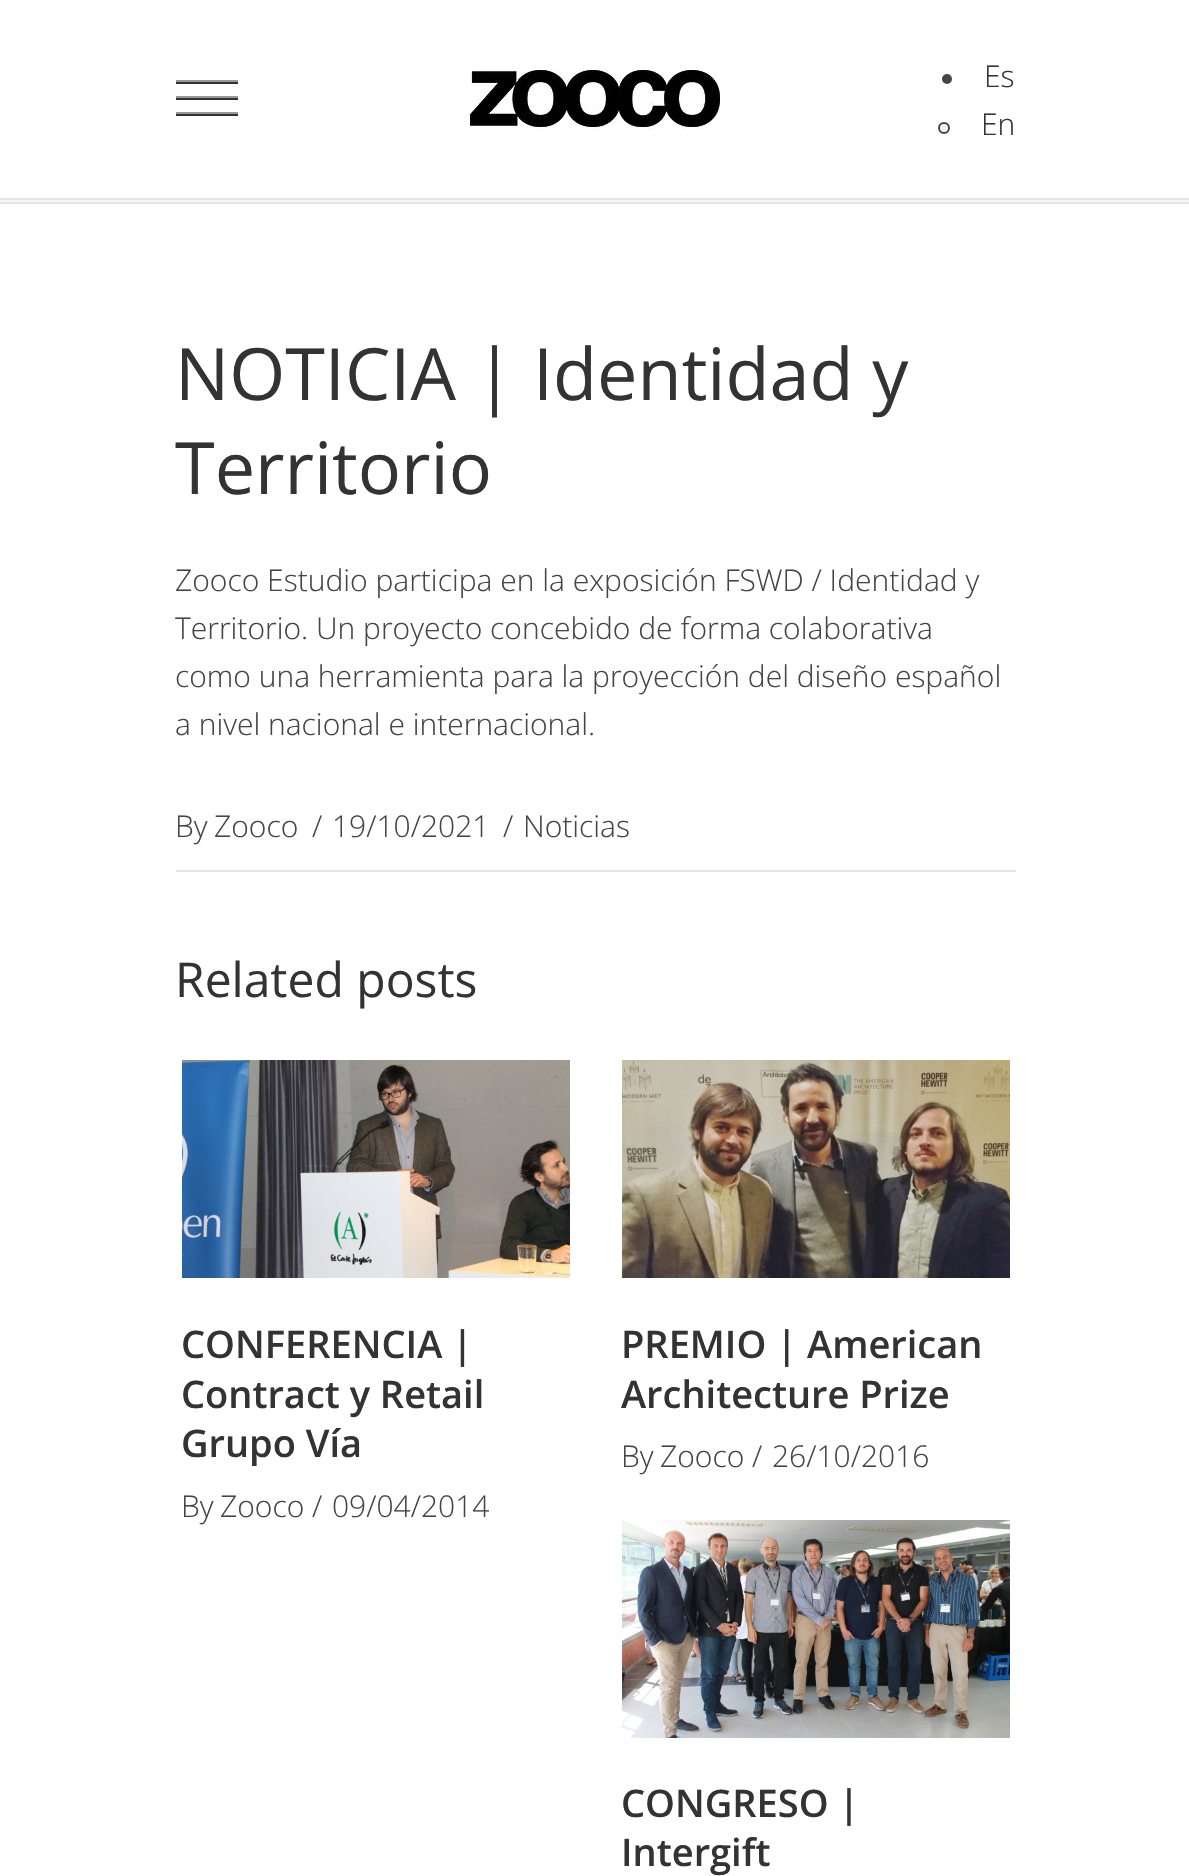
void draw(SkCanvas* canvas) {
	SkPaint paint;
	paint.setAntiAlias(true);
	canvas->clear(0xffffffff);
	paint.setColor(0xffe5e5e5);
	canvas->drawRect(SkRect::MakeXYWH(0, 198, 1189, 2), paint);
	paint.setColor(0xff333333);
	canvas->drawRect(SkRect::MakeXYWH(176, 82, 62, 2), paint);
	paint.setColor(0xff999999);
	canvas->drawRect(SkRect::MakeXYWH(176, 80, 62, 2), paint);
	paint.setColor(0xff333333);
	canvas->drawRect(SkRect::MakeXYWH(176, 98, 62, 2), paint);
	paint.setColor(0xff999999);
	canvas->drawRect(SkRect::MakeXYWH(176, 96, 62, 2), paint);
	paint.setColor(0xff333333);
	canvas->drawRect(SkRect::MakeXYWH(176, 114, 62, 2), paint);
	paint.setColor(0xff999999);
	canvas->drawRect(SkRect::MakeXYWH(176, 112, 62, 2), paint);
	canvas->drawImageRect(SkImages::DeferredFromEncodedData(SkData::MakeFromFileName("img1.png")), SkRect::MakeXYWH(470, 69, 250, 61), SkSamplingOptions());
	paint.setColor(0xff454545);
	canvas->drawCircle(947, 79, 5, paint);
	SkFont f1(fontMgr->matchFamilyStyle("Open Sans", SkFontStyle(300, SkFontStyle::kNormal_Width, SkFontStyle::kUpright_Slant)), 30);
	f1.setSubpixel(true);
	paint.setColor(0xff333333);
	canvas->drawString("Es", 984, 87, f1, paint);
	paint.setStroke(true);
	paint.setStrokeWidth(2);
	paint.setColor(0xff454545);
	canvas->drawCircle(944, 128, 5, paint);
	paint.setStroke(false);
	paint.setColor(0xff333333);
	canvas->drawString("En", 981, 135, f1, paint);
	paint.setColor(0xfff6f6f6);
	canvas->drawRect(SkRect::MakeXYWH(0, 200, 1189, 2), paint);
	paint.setColor(0xffe5e5e5);
	canvas->drawRect(SkRect::MakeXYWH(0, 202, 1189, 2), paint);
	SkFont f2(fontMgr->matchFamilyStyle("Open Sans", SkFontStyle::Normal()), 72);
	f2.setSubpixel(true);
	paint.setColor(0xff333333);
	canvas->drawString("NOTICIA | Identidad y", 175, 400, f2, paint);
	canvas->drawString("Territorio", 175, 494, f2, paint);
	paint.setColor(0xff454545);
	canvas->drawString("Zooco Estudio participa en la exposición FSWD / Identidad y", 175, 591, f1, paint);
	canvas->drawString("Territorio. Un proyecto concebido de forma colaborativa", 175, 639, f1, paint);
	canvas->drawString("como una herramienta para la proyección del diseño español", 175, 687, f1, paint);
	canvas->drawString("a nivel nacional e internacional.", 175, 735, f1, paint);
	canvas->drawString("By", 175, 837, f1, paint);
	canvas->drawString("Zooco", 214, 837, f1, paint);
	canvas->drawString("/", 312, 837, f1, paint);
	canvas->drawString("19/10/2021", 332, 837, f1, paint);
	canvas->drawString("/", 503, 837, f1, paint);
	canvas->drawString("Noticias", 523, 837, f1, paint);
	paint.setColor(0xffe5e5e5);
	canvas->drawRect(SkRect::MakeXYWH(176, 870, 840, 2), paint);
	SkFont f3(fontMgr->matchFamilyStyle("Open Sans", SkFontStyle::Normal()), 48);
	f3.setSubpixel(true);
	paint.setColor(0xff333333);
	canvas->drawString("Related posts", 175, 997, f3, paint);
	canvas->drawImageRect(SkImages::DeferredFromEncodedData(SkData::MakeFromFileName("img2.png")), SkRect::MakeXYWH(182, 1060, 388, 218), SkSamplingOptions());
	SkFont f4(fontMgr->matchFamilyStyle("Open Sans", SkFontStyle(600, SkFontStyle::kNormal_Width, SkFontStyle::kUpright_Slant)), 38);
	f4.setSubpixel(true);
	canvas->drawString("CONFERENCIA |", 181, 1358, f4, paint);
	canvas->drawString("Contract y Retail", 181, 1408, f4, paint);
	canvas->drawString("Grupo Vía", 181, 1457, f4, paint);
	paint.setColor(0xff454545);
	canvas->drawString("By", 181, 1517, f1, paint);
	canvas->drawString("Zooco /", 220, 1517, f1, paint);
	canvas->drawString("09/04/2014", 332, 1517, f1, paint);
	canvas->drawImageRect(SkImages::DeferredFromEncodedData(SkData::MakeFromFileName("img3.png")), SkRect::MakeXYWH(622, 1060, 388, 218), SkSamplingOptions());
	paint.setColor(0xff333333);
	canvas->drawString("PREMIO | American", 621, 1358, f4, paint);
	canvas->drawString("Architecture Prize", 621, 1408, f4, paint);
	paint.setColor(0xff454545);
	canvas->drawString("By", 621, 1467, f1, paint);
	canvas->drawString("Zooco /", 660, 1467, f1, paint);
	canvas->drawString("26/10/2016", 772, 1467, f1, paint);
	canvas->drawImageRect(SkImages::DeferredFromEncodedData(SkData::MakeFromFileName("img4.png")), SkRect::MakeXYWH(622, 1520, 388, 218), SkSamplingOptions());
	paint.setColor(0xff333333);
	canvas->drawString("CONGRESO |", 621, 1817, f4, paint);
	canvas->drawString("Intergift", 621, 1866, f4, paint);
}
